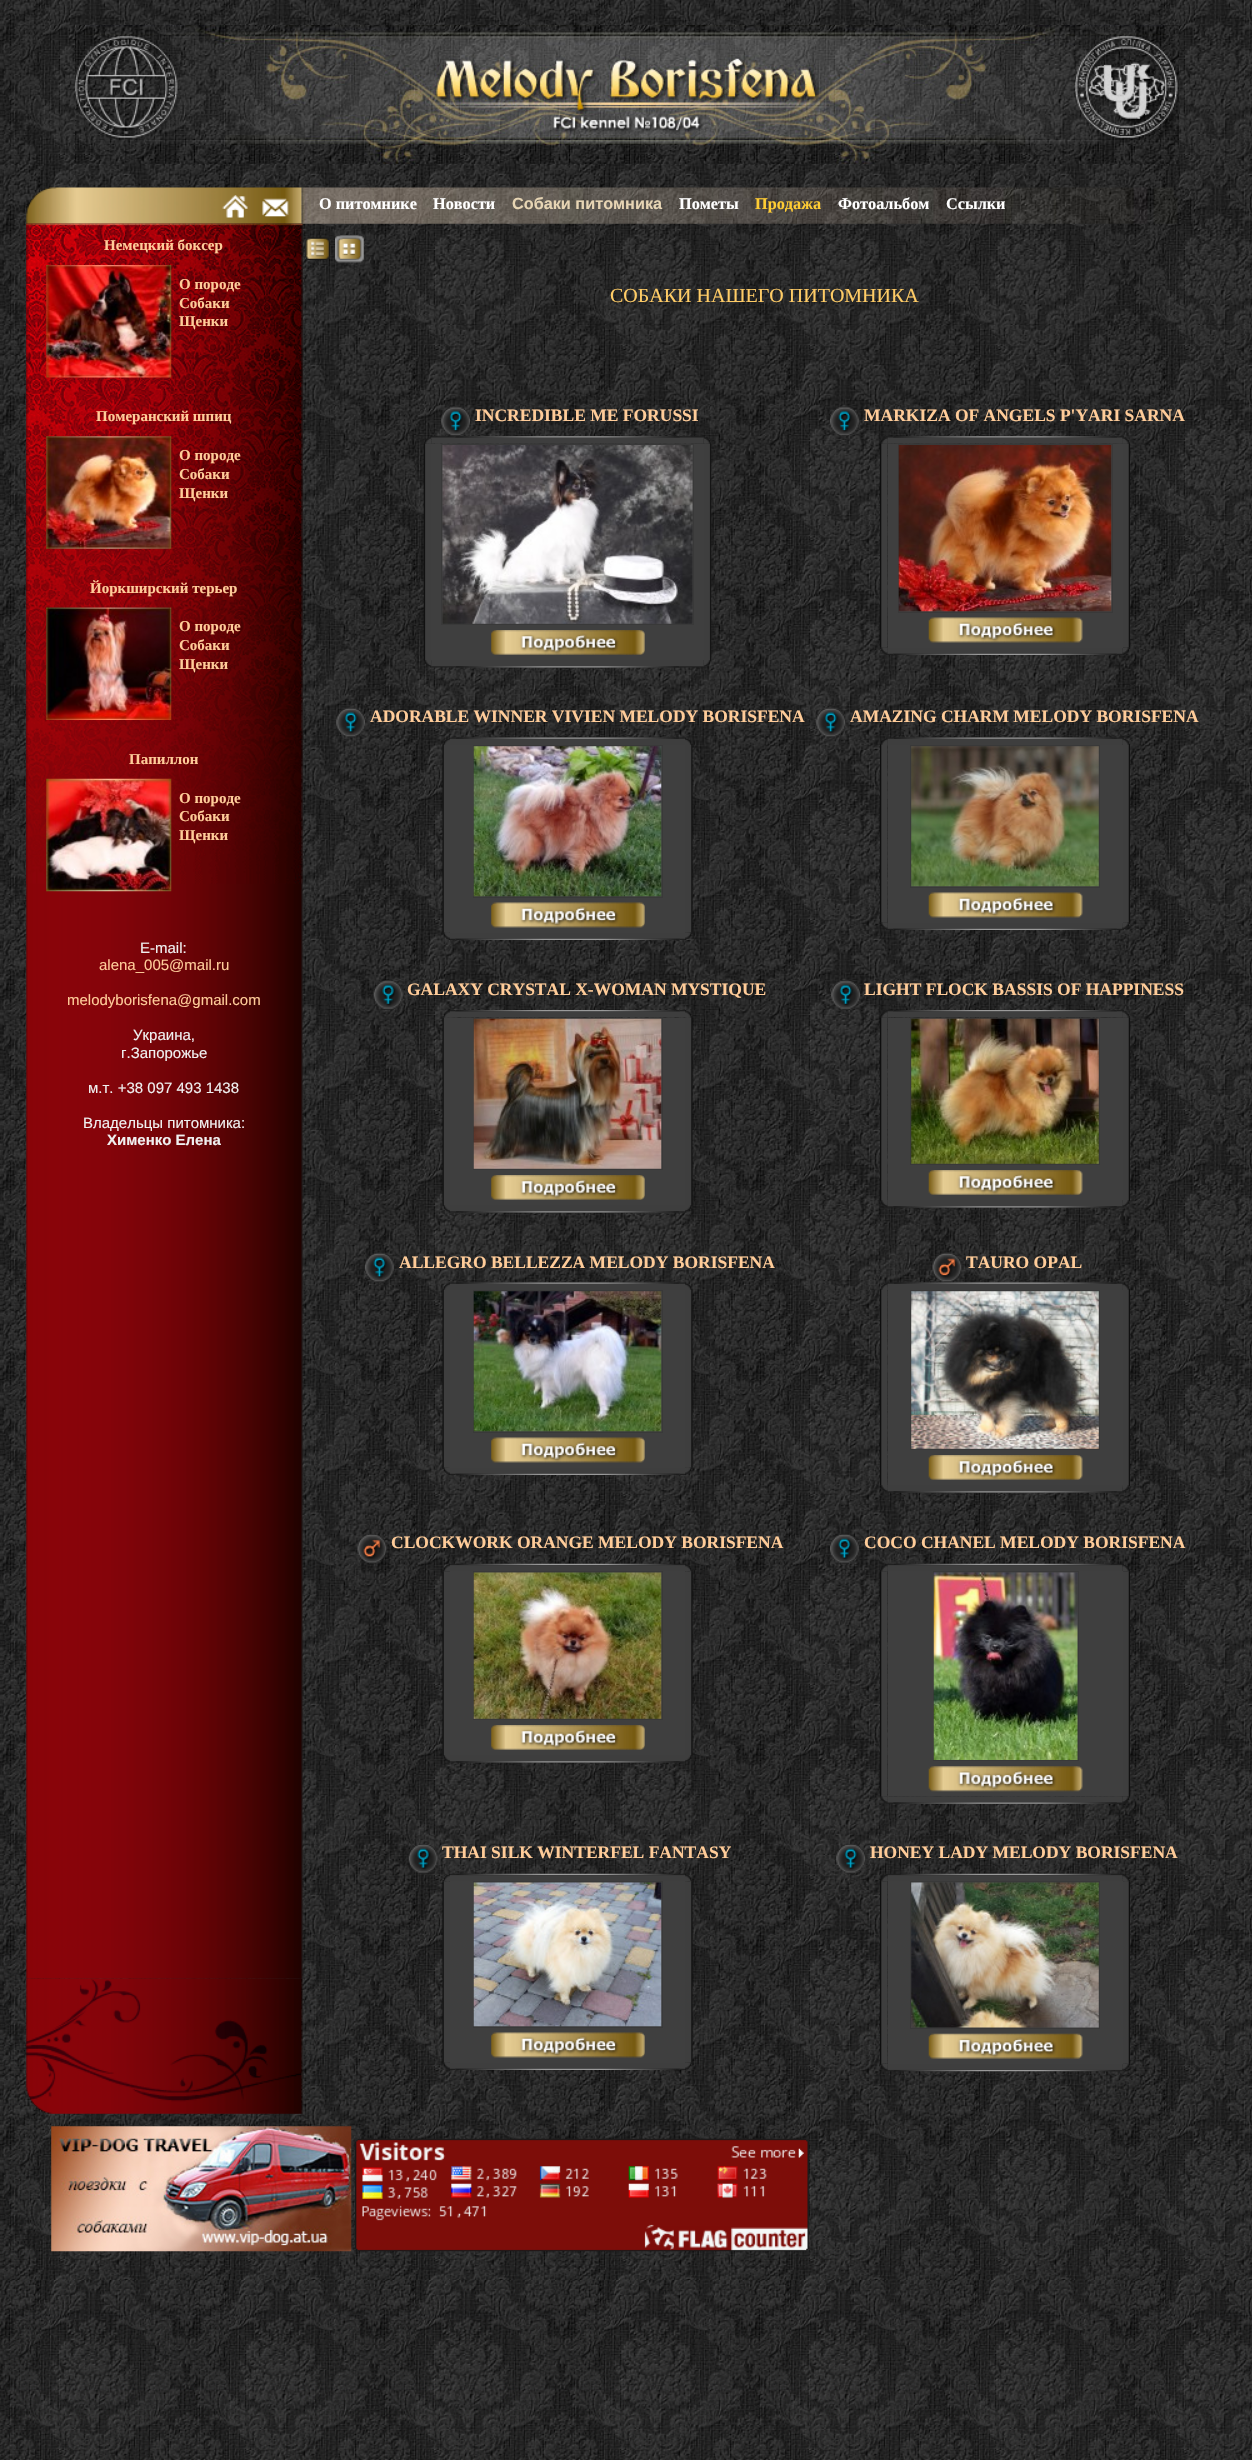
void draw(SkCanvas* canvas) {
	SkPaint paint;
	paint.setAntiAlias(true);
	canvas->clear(0xffffffff);
	canvas->drawImageRect(SkImages::DeferredFromEncodedData(SkData::MakeFromFileName("img1.png")), SkRect::MakeXYWH(0, 0, 1252, 2460), SkSamplingOptions());
	canvas->drawImageRect(SkImages::DeferredFromEncodedData(SkData::MakeFromFileName("img2.png")), SkRect::MakeXYWH(1, 0, 1251, 2280), SkSamplingOptions());
	canvas->drawImageRect(SkImages::DeferredFromEncodedData(SkData::MakeFromFileName("img3.png")), SkRect::MakeXYWH(75, 25, 1104, 139), SkSamplingOptions());
	canvas->drawImageRect(SkImages::DeferredFromEncodedData(SkData::MakeFromFileName("img14.png")), SkRect::MakeXYWH(302, 187, 891, 37), SkSamplingOptions());
	canvas->drawImageRect(SkImages::DeferredFromEncodedData(SkData::MakeFromFileName("img4.png")), SkRect::MakeXYWH(26, 187, 277, 37), SkSamplingOptions());
	canvas->drawImageRect(SkImages::DeferredFromEncodedData(SkData::MakeFromFileName("img5.png")), SkRect::MakeXYWH(222, 195, 26, 23), SkSamplingOptions());
	canvas->drawImageRect(SkImages::DeferredFromEncodedData(SkData::MakeFromFileName("img6.png")), SkRect::MakeXYWH(262, 198, 27, 19), SkSamplingOptions());
	canvas->drawImageRect(SkImages::DeferredFromEncodedData(SkData::MakeFromFileName("img7.png")), SkRect::MakeXYWH(26, 223, 277, 1756), SkSamplingOptions());
	canvas->drawImageRect(SkImages::DeferredFromEncodedData(SkData::MakeFromFileName("img8.png")), SkRect::MakeXYWH(26, 223, 277, 661), SkSamplingOptions());
	SkFont f1(fontMgr->matchFamilyStyle("Liberation Serif", SkFontStyle::Bold()), 15);
	f1.setSubpixel(true);
	paint.setColor(0xffffcc99);
	canvas->drawString("Немецкий боксер", 104, 250, f1, paint);
	canvas->drawImageRect(SkImages::DeferredFromEncodedData(SkData::MakeFromFileName("img9.png")), SkRect::MakeXYWH(46, 265, 126, 113), SkSamplingOptions());
	canvas->drawString("О породе", 179, 289, f1, paint);
	canvas->drawString("Собаки", 179, 308, f1, paint);
	canvas->drawString("Щенки", 179, 326, f1, paint);
	canvas->drawString("Померанский шпиц", 96, 421, f1, paint);
	canvas->drawImageRect(SkImages::DeferredFromEncodedData(SkData::MakeFromFileName("img10.png")), SkRect::MakeXYWH(46, 436, 126, 113), SkSamplingOptions());
	canvas->drawString("О породе", 179, 460, f1, paint);
	canvas->drawString("Собаки", 179, 479, f1, paint);
	canvas->drawString("Щенки", 179, 498, f1, paint);
	canvas->drawString("Йоркширский терьер", 90, 593, f1, paint);
	canvas->drawImageRect(SkImages::DeferredFromEncodedData(SkData::MakeFromFileName("img11.png")), SkRect::MakeXYWH(46, 607, 126, 113), SkSamplingOptions());
	canvas->drawString("О породе", 179, 631, f1, paint);
	canvas->drawString("Собаки", 179, 650, f1, paint);
	canvas->drawString("Щенки", 179, 669, f1, paint);
	canvas->drawString("Папиллон", 129, 764, f1, paint);
	canvas->drawImageRect(SkImages::DeferredFromEncodedData(SkData::MakeFromFileName("img12.png")), SkRect::MakeXYWH(46, 778, 126, 114), SkSamplingOptions());
	canvas->drawString("О породе", 179, 803, f1, paint);
	canvas->drawString("Собаки", 179, 821, f1, paint);
	canvas->drawString("Щенки", 179, 840, f1, paint);
	SkFont f2(fontMgr->matchFamilyStyle("Liberation Sans", SkFontStyle::Normal()), 15);
	f2.setSubpixel(true);
	paint.setColor(0xfff0f0f0);
	canvas->drawString("E-mail:", 140, 953, f2, paint);
	paint.setColor(0xffffcc99);
	canvas->drawString("alena_005@mail.ru", 99, 970, f2, paint);
	canvas->drawString("melodyborisfena@gmail.com", 67, 1005, f2, paint);
	paint.setColor(0xfff0f0f0);
	canvas->drawString("Украина,", 133, 1040, f2, paint);
	canvas->drawString("г.Запорожье", 121, 1058, f2, paint);
	canvas->drawString("м.т. +38 097 493 1438", 88, 1093, f2, paint);
	canvas->drawString("Владельцы питомника:", 83, 1128, f2, paint);
	SkFont f3(fontMgr->matchFamilyStyle("Liberation Sans", SkFontStyle::Bold()), 15);
	f3.setSubpixel(true);
	canvas->drawString("Хименко Елена", 107, 1145, f3, paint);
	canvas->drawImageRect(SkImages::DeferredFromEncodedData(SkData::MakeFromFileName("img13.png")), SkRect::MakeXYWH(26, 1978, 277, 136), SkSamplingOptions());
	SkFont f4(fontMgr->matchFamilyStyle("Liberation Serif", SkFontStyle::Bold()), 16.25);
	f4.setSubpixel(true);
	paint.setColor(0xffffffff);
	canvas->drawString("О питомнике", 319, 209, f4, paint);
	canvas->drawString("Новости", 433, 209, f4, paint);
	SkFont f5(fontMgr->matchFamilyStyle("Liberation Sans", SkFontStyle::Bold()), 16.25);
	f5.setSubpixel(true);
	paint.setColor(0xffe7d5b4);
	canvas->drawString("Собаки питомника", 512, 209, f5, paint);
	paint.setColor(0xffffffff);
	canvas->drawString("Пометы", 679, 209, f4, paint);
	paint.setColor(0xffffcc33);
	canvas->drawString("Продажа", 755, 209, f4, paint);
	paint.setColor(0xffffffff);
	canvas->drawString("Фотоальбом", 838, 209, f4, paint);
	canvas->drawString("Ссылки", 946, 209, f4, paint);
	canvas->drawImageRect(SkImages::DeferredFromEncodedData(SkData::MakeFromFileName("img15.png")), SkRect::MakeXYWH(305, 237, 25, 23), SkSamplingOptions());
	canvas->drawImageRect(SkImages::DeferredFromEncodedData(SkData::MakeFromFileName("img16.png")), SkRect::MakeXYWH(335, 235, 29, 28), SkSamplingOptions());
	SkFont f6(fontMgr->matchFamilyStyle("Liberation Serif", SkFontStyle::Normal()), 20);
	f6.setSubpixel(true);
	paint.setColor(0xffffcc66);
	canvas->drawString("СОБАКИ НАШЕГО ПИТОМНИКА", 610, 302, f6, paint);
	canvas->drawImageRect(SkImages::DeferredFromEncodedData(SkData::MakeFromFileName("img17.png")), SkRect::MakeXYWH(441, 406, 29, 30), SkSamplingOptions());
	SkFont f7(fontMgr->matchFamilyStyle("Liberation Serif", SkFontStyle::Bold()), 17.5);
	f7.setSubpixel(true);
	paint.setColor(0xffffcc99);
	canvas->drawString("INCREDIBLE ME FORUSSI", 475, 421, f7, paint);
	canvas->drawImageRect(SkImages::DeferredFromEncodedData(SkData::MakeFromFileName("img19.png")), SkRect::MakeXYWH(431, 436, 273, 8), SkSamplingOptions());
	canvas->drawImageRect(SkImages::DeferredFromEncodedData(SkData::MakeFromFileName("img22.png")), SkRect::MakeXYWH(423, 443, 9, 217), SkSamplingOptions());
	canvas->drawImageRect(SkImages::DeferredFromEncodedData(SkData::MakeFromFileName("img18.png")), SkRect::MakeXYWH(424, 437, 7, 7), SkSamplingOptions());
	canvas->drawImageRect(SkImages::DeferredFromEncodedData(SkData::MakeFromFileName("img20.png")), SkRect::MakeXYWH(455, 436, 225, 2), SkSamplingOptions());
	canvas->drawImageRect(SkImages::DeferredFromEncodedData(SkData::MakeFromFileName("img25.png")), SkRect::MakeXYWH(704, 443, 8, 217), SkSamplingOptions());
	canvas->drawImageRect(SkImages::DeferredFromEncodedData(SkData::MakeFromFileName("img21.png")), SkRect::MakeXYWH(704, 437, 7, 7), SkSamplingOptions());
	paint.setColor(0xff3f3f3f);
	canvas->drawRect(SkRect::MakeXYWH(431, 444, 273, 216), paint);
	paint.setStroke(true);
	paint.setStrokeWidth(1);
	paint.setColor(0xff393939);
	canvas->drawRect(SkRect::MakeXYWH(441.5, 444.5, 252, 180), paint);
	canvas->drawImageRect(SkImages::DeferredFromEncodedData(SkData::MakeFromFileName("img23.png")), SkRect::MakeXYWH(442, 445, 251, 179), SkSamplingOptions());
	canvas->drawImageRect(SkImages::DeferredFromEncodedData(SkData::MakeFromFileName("img24.png")), SkRect::MakeXYWH(491, 630, 154, 25), SkSamplingOptions());
	canvas->drawImageRect(SkImages::DeferredFromEncodedData(SkData::MakeFromFileName("img27.png")), SkRect::MakeXYWH(431, 660, 273, 8), SkSamplingOptions());
	canvas->drawImageRect(SkImages::DeferredFromEncodedData(SkData::MakeFromFileName("img26.png")), SkRect::MakeXYWH(423, 660, 9, 8), SkSamplingOptions());
	canvas->drawImageRect(SkImages::DeferredFromEncodedData(SkData::MakeFromFileName("img28.png")), SkRect::MakeXYWH(456, 666, 223, 2), SkSamplingOptions());
	canvas->drawImageRect(SkImages::DeferredFromEncodedData(SkData::MakeFromFileName("img29.png")), SkRect::MakeXYWH(704, 660, 8, 6), SkSamplingOptions());
	canvas->drawImageRect(SkImages::DeferredFromEncodedData(SkData::MakeFromFileName("img30.png")), SkRect::MakeXYWH(830, 406, 29, 30), SkSamplingOptions());
	paint.setStroke(false);
	paint.setColor(0xffffcc99);
	canvas->drawString("MARKIZA OF ANGELS P'YARI SARNA", 864, 421, f7, paint);
	canvas->drawImageRect(SkImages::DeferredFromEncodedData(SkData::MakeFromFileName("img32.png")), SkRect::MakeXYWH(887, 436, 236, 8), SkSamplingOptions());
	canvas->drawImageRect(SkImages::DeferredFromEncodedData(SkData::MakeFromFileName("img35.png")), SkRect::MakeXYWH(880, 443, 8, 205), SkSamplingOptions());
	canvas->drawImageRect(SkImages::DeferredFromEncodedData(SkData::MakeFromFileName("img31.png")), SkRect::MakeXYWH(880, 436, 8, 8), SkSamplingOptions());
	canvas->drawImageRect(SkImages::DeferredFromEncodedData(SkData::MakeFromFileName("img33.png")), SkRect::MakeXYWH(893, 436, 224, 2), SkSamplingOptions());
	canvas->drawImageRect(SkImages::DeferredFromEncodedData(SkData::MakeFromFileName("img38.png")), SkRect::MakeXYWH(1123, 443, 7, 205), SkSamplingOptions());
	canvas->drawImageRect(SkImages::DeferredFromEncodedData(SkData::MakeFromFileName("img34.png")), SkRect::MakeXYWH(1122, 436, 8, 8), SkSamplingOptions());
	paint.setColor(0xff3f3f3f);
	canvas->drawRect(SkRect::MakeXYWH(888, 444, 235, 204), paint);
	paint.setStroke(true);
	paint.setColor(0xff393939);
	canvas->drawRect(SkRect::MakeXYWH(898.5, 444.5, 214, 168), paint);
	canvas->drawImageRect(SkImages::DeferredFromEncodedData(SkData::MakeFromFileName("img36.png")), SkRect::MakeXYWH(898, 445, 214, 167), SkSamplingOptions());
	canvas->drawImageRect(SkImages::DeferredFromEncodedData(SkData::MakeFromFileName("img37.png")), SkRect::MakeXYWH(928, 617, 155, 26), SkSamplingOptions());
	canvas->drawImageRect(SkImages::DeferredFromEncodedData(SkData::MakeFromFileName("img40.png")), SkRect::MakeXYWH(887, 647, 236, 8), SkSamplingOptions());
	canvas->drawImageRect(SkImages::DeferredFromEncodedData(SkData::MakeFromFileName("img39.png")), SkRect::MakeXYWH(880, 647, 8, 8), SkSamplingOptions());
	canvas->drawImageRect(SkImages::DeferredFromEncodedData(SkData::MakeFromFileName("img41.png")), SkRect::MakeXYWH(893, 653, 224, 2), SkSamplingOptions());
	canvas->drawImageRect(SkImages::DeferredFromEncodedData(SkData::MakeFromFileName("img42.png")), SkRect::MakeXYWH(1122, 647, 8, 8), SkSamplingOptions());
	canvas->drawImageRect(SkImages::DeferredFromEncodedData(SkData::MakeFromFileName("img43.png")), SkRect::MakeXYWH(336, 707, 29, 31), SkSamplingOptions());
	paint.setStroke(false);
	paint.setColor(0xffffcc99);
	canvas->drawString("ADORABLE WINNER VIVIEN MELODY BORISFENA", 370, 722, f7, paint);
	canvas->drawImageRect(SkImages::DeferredFromEncodedData(SkData::MakeFromFileName("img44.png")), SkRect::MakeXYWH(442, 737, 8, 8), SkSamplingOptions());
	canvas->drawImageRect(SkImages::DeferredFromEncodedData(SkData::MakeFromFileName("img45.png")), SkRect::MakeXYWH(450, 737, 235, 8), SkSamplingOptions());
	canvas->drawImageRect(SkImages::DeferredFromEncodedData(SkData::MakeFromFileName("img46.png")), SkRect::MakeXYWH(456, 737, 223, 2), SkSamplingOptions());
	canvas->drawImageRect(SkImages::DeferredFromEncodedData(SkData::MakeFromFileName("img47.png")), SkRect::MakeXYWH(685, 737, 8, 8), SkSamplingOptions());
	canvas->drawImageRect(SkImages::DeferredFromEncodedData(SkData::MakeFromFileName("img48.png")), SkRect::MakeXYWH(442, 745, 8, 188), SkSamplingOptions());
	paint.setColor(0xff3f3f3f);
	canvas->drawRect(SkRect::MakeXYWH(450, 745, 235, 188), paint);
	paint.setStroke(true);
	paint.setColor(0xff393939);
	canvas->drawRect(SkRect::MakeXYWH(473.5, 745.5, 189, 152), paint);
	canvas->drawImageRect(SkImages::DeferredFromEncodedData(SkData::MakeFromFileName("img49.png")), SkRect::MakeXYWH(473, 746, 189, 151), SkSamplingOptions());
	canvas->drawImageRect(SkImages::DeferredFromEncodedData(SkData::MakeFromFileName("img50.png")), SkRect::MakeXYWH(491, 902, 154, 26), SkSamplingOptions());
	canvas->drawImageRect(SkImages::DeferredFromEncodedData(SkData::MakeFromFileName("img51.png")), SkRect::MakeXYWH(685, 745, 8, 188), SkSamplingOptions());
	canvas->drawImageRect(SkImages::DeferredFromEncodedData(SkData::MakeFromFileName("img52.png")), SkRect::MakeXYWH(443, 932, 7, 8), SkSamplingOptions());
	canvas->drawImageRect(SkImages::DeferredFromEncodedData(SkData::MakeFromFileName("img53.png")), SkRect::MakeXYWH(450, 933, 235, 7), SkSamplingOptions());
	canvas->drawImageRect(SkImages::DeferredFromEncodedData(SkData::MakeFromFileName("img54.png")), SkRect::MakeXYWH(455, 938, 225, 2), SkSamplingOptions());
	canvas->drawImageRect(SkImages::DeferredFromEncodedData(SkData::MakeFromFileName("img55.png")), SkRect::MakeXYWH(685, 932, 8, 8), SkSamplingOptions());
	canvas->drawImageRect(SkImages::DeferredFromEncodedData(SkData::MakeFromFileName("img56.png")), SkRect::MakeXYWH(816, 707, 29, 31), SkSamplingOptions());
	paint.setStroke(false);
	paint.setColor(0xffffcc99);
	canvas->drawString("AMAZING CHARM MELODY BORISFENA", 850, 722, f7, paint);
	canvas->drawImageRect(SkImages::DeferredFromEncodedData(SkData::MakeFromFileName("img58.png")), SkRect::MakeXYWH(887, 737, 236, 8), SkSamplingOptions());
	canvas->drawImageRect(SkImages::DeferredFromEncodedData(SkData::MakeFromFileName("img57.png")), SkRect::MakeXYWH(880, 737, 8, 8), SkSamplingOptions());
	canvas->drawImageRect(SkImages::DeferredFromEncodedData(SkData::MakeFromFileName("img59.png")), SkRect::MakeXYWH(894, 737, 223, 2), SkSamplingOptions());
	canvas->drawImageRect(SkImages::DeferredFromEncodedData(SkData::MakeFromFileName("img60.png")), SkRect::MakeXYWH(1122, 738, 8, 7), SkSamplingOptions());
	canvas->drawImageRect(SkImages::DeferredFromEncodedData(SkData::MakeFromFileName("img61.png")), SkRect::MakeXYWH(880, 745, 8, 178), SkSamplingOptions());
	paint.setColor(0xff3f3f3f);
	canvas->drawRect(SkRect::MakeXYWH(888, 745, 235, 178), paint);
	paint.setStroke(true);
	paint.setColor(0xff393939);
	canvas->drawRect(SkRect::MakeXYWH(910.5, 745.5, 189, 142), paint);
	canvas->drawImageRect(SkImages::DeferredFromEncodedData(SkData::MakeFromFileName("img62.png")), SkRect::MakeXYWH(911, 746, 188, 141), SkSamplingOptions());
	canvas->drawImageRect(SkImages::DeferredFromEncodedData(SkData::MakeFromFileName("img37.png")), SkRect::MakeXYWH(928, 892, 155, 26), SkSamplingOptions());
	canvas->drawImageRect(SkImages::DeferredFromEncodedData(SkData::MakeFromFileName("img63.png")), SkRect::MakeXYWH(1123, 745, 7, 178), SkSamplingOptions());
	canvas->drawImageRect(SkImages::DeferredFromEncodedData(SkData::MakeFromFileName("img65.png")), SkRect::MakeXYWH(887, 922, 236, 8), SkSamplingOptions());
	canvas->drawImageRect(SkImages::DeferredFromEncodedData(SkData::MakeFromFileName("img64.png")), SkRect::MakeXYWH(881, 922, 7, 8), SkSamplingOptions());
	canvas->drawImageRect(SkImages::DeferredFromEncodedData(SkData::MakeFromFileName("img41.png")), SkRect::MakeXYWH(893, 928, 224, 2), SkSamplingOptions());
	canvas->drawImageRect(SkImages::DeferredFromEncodedData(SkData::MakeFromFileName("img66.png")), SkRect::MakeXYWH(1122, 922, 8, 8), SkSamplingOptions());
	canvas->drawImageRect(SkImages::DeferredFromEncodedData(SkData::MakeFromFileName("img67.png")), SkRect::MakeXYWH(373, 980, 30, 30), SkSamplingOptions());
	paint.setStroke(false);
	paint.setColor(0xffffcc99);
	canvas->drawString("GALAXY CRYSTAL X-WOMAN MYSTIQUE", 407, 995, f7, paint);
	canvas->drawImageRect(SkImages::DeferredFromEncodedData(SkData::MakeFromFileName("img72.png")), SkRect::MakeXYWH(442, 1017, 8, 188), SkSamplingOptions());
	canvas->drawImageRect(SkImages::DeferredFromEncodedData(SkData::MakeFromFileName("img68.png")), SkRect::MakeXYWH(442, 1010, 8, 8), SkSamplingOptions());
	canvas->drawImageRect(SkImages::DeferredFromEncodedData(SkData::MakeFromFileName("img69.png")), SkRect::MakeXYWH(450, 1010, 235, 8), SkSamplingOptions());
	canvas->drawImageRect(SkImages::DeferredFromEncodedData(SkData::MakeFromFileName("img70.png")), SkRect::MakeXYWH(455, 1010, 225, 2), SkSamplingOptions());
	canvas->drawImageRect(SkImages::DeferredFromEncodedData(SkData::MakeFromFileName("img75.png")), SkRect::MakeXYWH(685, 1017, 8, 188), SkSamplingOptions());
	canvas->drawImageRect(SkImages::DeferredFromEncodedData(SkData::MakeFromFileName("img71.png")), SkRect::MakeXYWH(685, 1010, 8, 8), SkSamplingOptions());
	paint.setColor(0xff3f3f3f);
	canvas->drawRect(SkRect::MakeXYWH(450, 1018, 235, 187), paint);
	paint.setStroke(true);
	paint.setColor(0xff393939);
	canvas->drawRect(SkRect::MakeXYWH(473.5, 1018.5, 189, 151), paint);
	canvas->drawImageRect(SkImages::DeferredFromEncodedData(SkData::MakeFromFileName("img73.png")), SkRect::MakeXYWH(473, 1018, 189, 151), SkSamplingOptions());
	canvas->drawImageRect(SkImages::DeferredFromEncodedData(SkData::MakeFromFileName("img74.png")), SkRect::MakeXYWH(491, 1175, 154, 25), SkSamplingOptions());
	canvas->drawImageRect(SkImages::DeferredFromEncodedData(SkData::MakeFromFileName("img76.png")), SkRect::MakeXYWH(442, 1205, 8, 8), SkSamplingOptions());
	canvas->drawImageRect(SkImages::DeferredFromEncodedData(SkData::MakeFromFileName("img77.png")), SkRect::MakeXYWH(450, 1205, 235, 8), SkSamplingOptions());
	canvas->drawImageRect(SkImages::DeferredFromEncodedData(SkData::MakeFromFileName("img78.png")), SkRect::MakeXYWH(456, 1211, 223, 2), SkSamplingOptions());
	canvas->drawImageRect(SkImages::DeferredFromEncodedData(SkData::MakeFromFileName("img79.png")), SkRect::MakeXYWH(685, 1205, 8, 8), SkSamplingOptions());
	canvas->drawImageRect(SkImages::DeferredFromEncodedData(SkData::MakeFromFileName("img80.png")), SkRect::MakeXYWH(831, 980, 29, 30), SkSamplingOptions());
	paint.setStroke(false);
	paint.setColor(0xffffcc99);
	canvas->drawString("LIGHT FLOCK BASSIS OF HAPPINESS", 864, 995, f7, paint);
	canvas->drawImageRect(SkImages::DeferredFromEncodedData(SkData::MakeFromFileName("img82.png")), SkRect::MakeXYWH(887, 1010, 236, 8), SkSamplingOptions());
	canvas->drawImageRect(SkImages::DeferredFromEncodedData(SkData::MakeFromFileName("img85.png")), SkRect::MakeXYWH(880, 1017, 8, 183), SkSamplingOptions());
	canvas->drawImageRect(SkImages::DeferredFromEncodedData(SkData::MakeFromFileName("img81.png")), SkRect::MakeXYWH(880, 1010, 8, 8), SkSamplingOptions());
	canvas->drawImageRect(SkImages::DeferredFromEncodedData(SkData::MakeFromFileName("img83.png")), SkRect::MakeXYWH(893, 1010, 224, 2), SkSamplingOptions());
	canvas->drawImageRect(SkImages::DeferredFromEncodedData(SkData::MakeFromFileName("img88.png")), SkRect::MakeXYWH(1123, 1017, 7, 183), SkSamplingOptions());
	canvas->drawImageRect(SkImages::DeferredFromEncodedData(SkData::MakeFromFileName("img84.png")), SkRect::MakeXYWH(1122, 1010, 8, 8), SkSamplingOptions());
	paint.setColor(0xff3f3f3f);
	canvas->drawRect(SkRect::MakeXYWH(888, 1018, 235, 182), paint);
	paint.setStroke(true);
	paint.setColor(0xff393939);
	canvas->drawRect(SkRect::MakeXYWH(910.5, 1018.5, 189, 146), paint);
	canvas->drawImageRect(SkImages::DeferredFromEncodedData(SkData::MakeFromFileName("img86.png")), SkRect::MakeXYWH(911, 1018, 188, 146), SkSamplingOptions());
	canvas->drawImageRect(SkImages::DeferredFromEncodedData(SkData::MakeFromFileName("img87.png")), SkRect::MakeXYWH(928, 1170, 155, 25), SkSamplingOptions());
	canvas->drawImageRect(SkImages::DeferredFromEncodedData(SkData::MakeFromFileName("img90.png")), SkRect::MakeXYWH(887, 1200, 236, 8), SkSamplingOptions());
	canvas->drawImageRect(SkImages::DeferredFromEncodedData(SkData::MakeFromFileName("img89.png")), SkRect::MakeXYWH(880, 1200, 8, 7), SkSamplingOptions());
	canvas->drawImageRect(SkImages::DeferredFromEncodedData(SkData::MakeFromFileName("img91.png")), SkRect::MakeXYWH(893, 1206, 224, 2), SkSamplingOptions());
	canvas->drawImageRect(SkImages::DeferredFromEncodedData(SkData::MakeFromFileName("img92.png")), SkRect::MakeXYWH(1122, 1200, 8, 8), SkSamplingOptions());
	canvas->drawImageRect(SkImages::DeferredFromEncodedData(SkData::MakeFromFileName("img93.png")), SkRect::MakeXYWH(365, 1252, 29, 31), SkSamplingOptions());
	paint.setStroke(false);
	paint.setColor(0xffffcc99);
	canvas->drawString("ALLEGRO BELLEZZA MELODY BORISFENA", 399, 1268, f7, paint);
	canvas->drawImageRect(SkImages::DeferredFromEncodedData(SkData::MakeFromFileName("img94.png")), SkRect::MakeXYWH(442, 1282, 8, 8), SkSamplingOptions());
	canvas->drawImageRect(SkImages::DeferredFromEncodedData(SkData::MakeFromFileName("img95.png")), SkRect::MakeXYWH(450, 1282, 235, 8), SkSamplingOptions());
	canvas->drawImageRect(SkImages::DeferredFromEncodedData(SkData::MakeFromFileName("img96.png")), SkRect::MakeXYWH(456, 1282, 223, 2), SkSamplingOptions());
	canvas->drawImageRect(SkImages::DeferredFromEncodedData(SkData::MakeFromFileName("img97.png")), SkRect::MakeXYWH(685, 1282, 8, 8), SkSamplingOptions());
	canvas->drawImageRect(SkImages::DeferredFromEncodedData(SkData::MakeFromFileName("img98.png")), SkRect::MakeXYWH(442, 1290, 8, 178), SkSamplingOptions());
	paint.setColor(0xff3f3f3f);
	canvas->drawRect(SkRect::MakeXYWH(450, 1290, 235, 178), paint);
	paint.setStroke(true);
	paint.setColor(0xff393939);
	canvas->drawRect(SkRect::MakeXYWH(473.5, 1290.5, 189, 142), paint);
	canvas->drawImageRect(SkImages::DeferredFromEncodedData(SkData::MakeFromFileName("img99.png")), SkRect::MakeXYWH(473, 1291, 189, 141), SkSamplingOptions());
	canvas->drawImageRect(SkImages::DeferredFromEncodedData(SkData::MakeFromFileName("img50.png")), SkRect::MakeXYWH(491, 1437, 154, 26), SkSamplingOptions());
	canvas->drawImageRect(SkImages::DeferredFromEncodedData(SkData::MakeFromFileName("img100.png")), SkRect::MakeXYWH(685, 1290, 8, 178), SkSamplingOptions());
	canvas->drawImageRect(SkImages::DeferredFromEncodedData(SkData::MakeFromFileName("img101.png")), SkRect::MakeXYWH(442, 1467, 8, 8), SkSamplingOptions());
	canvas->drawImageRect(SkImages::DeferredFromEncodedData(SkData::MakeFromFileName("img53.png")), SkRect::MakeXYWH(450, 1468, 235, 7), SkSamplingOptions());
	canvas->drawImageRect(SkImages::DeferredFromEncodedData(SkData::MakeFromFileName("img54.png")), SkRect::MakeXYWH(455, 1473, 225, 2), SkSamplingOptions());
	canvas->drawImageRect(SkImages::DeferredFromEncodedData(SkData::MakeFromFileName("img102.png")), SkRect::MakeXYWH(685, 1467, 8, 8), SkSamplingOptions());
	canvas->drawImageRect(SkImages::DeferredFromEncodedData(SkData::MakeFromFileName("img105.png")), SkRect::MakeXYWH(887, 1282, 236, 8), SkSamplingOptions());
	canvas->drawImageRect(SkImages::DeferredFromEncodedData(SkData::MakeFromFileName("img103.png")), SkRect::MakeXYWH(932, 1252, 30, 31), SkSamplingOptions());
	paint.setStroke(false);
	paint.setColor(0xffffcc99);
	canvas->drawString("TAURO OPAL", 966, 1268, f7, paint);
	canvas->drawImageRect(SkImages::DeferredFromEncodedData(SkData::MakeFromFileName("img104.png")), SkRect::MakeXYWH(880, 1283, 8, 7), SkSamplingOptions());
	canvas->drawImageRect(SkImages::DeferredFromEncodedData(SkData::MakeFromFileName("img106.png")), SkRect::MakeXYWH(894, 1282, 223, 2), SkSamplingOptions());
	canvas->drawImageRect(SkImages::DeferredFromEncodedData(SkData::MakeFromFileName("img107.png")), SkRect::MakeXYWH(1122, 1282, 8, 8), SkSamplingOptions());
	canvas->drawImageRect(SkImages::DeferredFromEncodedData(SkData::MakeFromFileName("img108.png")), SkRect::MakeXYWH(880, 1290, 8, 195), SkSamplingOptions());
	paint.setColor(0xff3f3f3f);
	canvas->drawRect(SkRect::MakeXYWH(888, 1290, 235, 195), paint);
	paint.setStroke(true);
	paint.setColor(0xff393939);
	canvas->drawRect(SkRect::MakeXYWH(910.5, 1290.5, 189, 159), paint);
	canvas->drawImageRect(SkImages::DeferredFromEncodedData(SkData::MakeFromFileName("img109.png")), SkRect::MakeXYWH(911, 1291, 188, 158), SkSamplingOptions());
	canvas->drawImageRect(SkImages::DeferredFromEncodedData(SkData::MakeFromFileName("img110.png")), SkRect::MakeXYWH(928, 1455, 155, 25), SkSamplingOptions());
	canvas->drawImageRect(SkImages::DeferredFromEncodedData(SkData::MakeFromFileName("img111.png")), SkRect::MakeXYWH(1123, 1290, 7, 195), SkSamplingOptions());
	canvas->drawImageRect(SkImages::DeferredFromEncodedData(SkData::MakeFromFileName("img113.png")), SkRect::MakeXYWH(887, 1485, 236, 8), SkSamplingOptions());
	canvas->drawImageRect(SkImages::DeferredFromEncodedData(SkData::MakeFromFileName("img112.png")), SkRect::MakeXYWH(881, 1485, 7, 8), SkSamplingOptions());
	canvas->drawImageRect(SkImages::DeferredFromEncodedData(SkData::MakeFromFileName("img114.png")), SkRect::MakeXYWH(893, 1491, 224, 2), SkSamplingOptions());
	canvas->drawImageRect(SkImages::DeferredFromEncodedData(SkData::MakeFromFileName("img115.png")), SkRect::MakeXYWH(1122, 1485, 8, 7), SkSamplingOptions());
	canvas->drawImageRect(SkImages::DeferredFromEncodedData(SkData::MakeFromFileName("img116.png")), SkRect::MakeXYWH(357, 1533, 30, 31), SkSamplingOptions());
	paint.setStroke(false);
	paint.setColor(0xffffcc99);
	canvas->drawString("CLOCKWORK ORANGE MELODY BORISFENA", 391, 1548, f7, paint);
	canvas->drawImageRect(SkImages::DeferredFromEncodedData(SkData::MakeFromFileName("img117.png")), SkRect::MakeXYWH(442, 1563, 8, 8), SkSamplingOptions());
	canvas->drawImageRect(SkImages::DeferredFromEncodedData(SkData::MakeFromFileName("img118.png")), SkRect::MakeXYWH(450, 1563, 235, 8), SkSamplingOptions());
	canvas->drawImageRect(SkImages::DeferredFromEncodedData(SkData::MakeFromFileName("img119.png")), SkRect::MakeXYWH(456, 1563, 218, 2), SkSamplingOptions());
	canvas->drawImageRect(SkImages::DeferredFromEncodedData(SkData::MakeFromFileName("img120.png")), SkRect::MakeXYWH(685, 1564, 8, 7), SkSamplingOptions());
	canvas->drawImageRect(SkImages::DeferredFromEncodedData(SkData::MakeFromFileName("img121.png")), SkRect::MakeXYWH(442, 1571, 8, 184), SkSamplingOptions());
	paint.setColor(0xff3f3f3f);
	canvas->drawRect(SkRect::MakeXYWH(450, 1571, 235, 184), paint);
	paint.setStroke(true);
	paint.setColor(0xff393939);
	canvas->drawRect(SkRect::MakeXYWH(473.5, 1571.5, 189, 148), paint);
	canvas->drawImageRect(SkImages::DeferredFromEncodedData(SkData::MakeFromFileName("img122.png")), SkRect::MakeXYWH(473, 1572, 189, 147), SkSamplingOptions());
	canvas->drawImageRect(SkImages::DeferredFromEncodedData(SkData::MakeFromFileName("img24.png")), SkRect::MakeXYWH(491, 1725, 154, 25), SkSamplingOptions());
	canvas->drawImageRect(SkImages::DeferredFromEncodedData(SkData::MakeFromFileName("img123.png")), SkRect::MakeXYWH(685, 1571, 8, 184), SkSamplingOptions());
	canvas->drawImageRect(SkImages::DeferredFromEncodedData(SkData::MakeFromFileName("img124.png")), SkRect::MakeXYWH(442, 1755, 8, 8), SkSamplingOptions());
	canvas->drawImageRect(SkImages::DeferredFromEncodedData(SkData::MakeFromFileName("img125.png")), SkRect::MakeXYWH(450, 1755, 235, 8), SkSamplingOptions());
	canvas->drawImageRect(SkImages::DeferredFromEncodedData(SkData::MakeFromFileName("img126.png")), SkRect::MakeXYWH(456, 1761, 224, 2), SkSamplingOptions());
	canvas->drawImageRect(SkImages::DeferredFromEncodedData(SkData::MakeFromFileName("img127.png")), SkRect::MakeXYWH(685, 1755, 8, 8), SkSamplingOptions());
	canvas->drawImageRect(SkImages::DeferredFromEncodedData(SkData::MakeFromFileName("img128.png")), SkRect::MakeXYWH(830, 1534, 29, 30), SkSamplingOptions());
	paint.setStroke(false);
	paint.setColor(0xffffcc99);
	canvas->drawString("COCO CHANEL MELODY BORISFENA", 864, 1548, f7, paint);
	canvas->drawImageRect(SkImages::DeferredFromEncodedData(SkData::MakeFromFileName("img130.png")), SkRect::MakeXYWH(887, 1563, 236, 9), SkSamplingOptions());
	canvas->drawImageRect(SkImages::DeferredFromEncodedData(SkData::MakeFromFileName("img129.png")), SkRect::MakeXYWH(880, 1564, 8, 7), SkSamplingOptions());
	canvas->drawImageRect(SkImages::DeferredFromEncodedData(SkData::MakeFromFileName("img131.png")), SkRect::MakeXYWH(894, 1563, 217, 2), SkSamplingOptions());
	canvas->drawImageRect(SkImages::DeferredFromEncodedData(SkData::MakeFromFileName("img132.png")), SkRect::MakeXYWH(1122, 1564, 8, 7), SkSamplingOptions());
	canvas->drawImageRect(SkImages::DeferredFromEncodedData(SkData::MakeFromFileName("img133.png")), SkRect::MakeXYWH(880, 1571, 8, 226), SkSamplingOptions());
	paint.setColor(0xff3f3f3f);
	canvas->drawRect(SkRect::MakeXYWH(888, 1571, 235, 225), paint);
	paint.setStroke(true);
	paint.setColor(0xff393939);
	canvas->drawRect(SkRect::MakeXYWH(933.5, 1571.5, 145, 189), paint);
	canvas->drawImageRect(SkImages::DeferredFromEncodedData(SkData::MakeFromFileName("img134.png")), SkRect::MakeXYWH(933, 1572, 145, 188), SkSamplingOptions());
	canvas->drawImageRect(SkImages::DeferredFromEncodedData(SkData::MakeFromFileName("img135.png")), SkRect::MakeXYWH(928, 1766, 155, 26), SkSamplingOptions());
	canvas->drawImageRect(SkImages::DeferredFromEncodedData(SkData::MakeFromFileName("img136.png")), SkRect::MakeXYWH(1123, 1571, 7, 226), SkSamplingOptions());
	canvas->drawImageRect(SkImages::DeferredFromEncodedData(SkData::MakeFromFileName("img138.png")), SkRect::MakeXYWH(887, 1796, 236, 8), SkSamplingOptions());
	canvas->drawImageRect(SkImages::DeferredFromEncodedData(SkData::MakeFromFileName("img137.png")), SkRect::MakeXYWH(880, 1796, 8, 8), SkSamplingOptions());
	canvas->drawImageRect(SkImages::DeferredFromEncodedData(SkData::MakeFromFileName("img139.png")), SkRect::MakeXYWH(893, 1802, 224, 2), SkSamplingOptions());
	canvas->drawImageRect(SkImages::DeferredFromEncodedData(SkData::MakeFromFileName("img140.png")), SkRect::MakeXYWH(1122, 1796, 8, 8), SkSamplingOptions());
	canvas->drawImageRect(SkImages::DeferredFromEncodedData(SkData::MakeFromFileName("img141.png")), SkRect::MakeXYWH(408, 1843, 30, 31), SkSamplingOptions());
	paint.setStroke(false);
	paint.setColor(0xffffcc99);
	canvas->drawString("THAI SILK WINTERFEL FANTASY", 442, 1858, f7, paint);
	canvas->drawImageRect(SkImages::DeferredFromEncodedData(SkData::MakeFromFileName("img142.png")), SkRect::MakeXYWH(442, 1873, 8, 8), SkSamplingOptions());
	canvas->drawImageRect(SkImages::DeferredFromEncodedData(SkData::MakeFromFileName("img143.png")), SkRect::MakeXYWH(450, 1873, 235, 8), SkSamplingOptions());
	canvas->drawImageRect(SkImages::DeferredFromEncodedData(SkData::MakeFromFileName("img144.png")), SkRect::MakeXYWH(456, 1873, 218, 2), SkSamplingOptions());
	canvas->drawImageRect(SkImages::DeferredFromEncodedData(SkData::MakeFromFileName("img145.png")), SkRect::MakeXYWH(685, 1875, 8, 6), SkSamplingOptions());
	canvas->drawImageRect(SkImages::DeferredFromEncodedData(SkData::MakeFromFileName("img146.png")), SkRect::MakeXYWH(442, 1881, 8, 182), SkSamplingOptions());
	paint.setColor(0xff3f3f3f);
	canvas->drawRect(SkRect::MakeXYWH(450, 1881, 235, 182), paint);
	paint.setStroke(true);
	paint.setColor(0xff393939);
	canvas->drawRect(SkRect::MakeXYWH(473.5, 1881.5, 189, 146), paint);
	canvas->drawImageRect(SkImages::DeferredFromEncodedData(SkData::MakeFromFileName("img147.png")), SkRect::MakeXYWH(473, 1882, 189, 145), SkSamplingOptions());
	canvas->drawImageRect(SkImages::DeferredFromEncodedData(SkData::MakeFromFileName("img50.png")), SkRect::MakeXYWH(491, 2032, 154, 26), SkSamplingOptions());
	canvas->drawImageRect(SkImages::DeferredFromEncodedData(SkData::MakeFromFileName("img148.png")), SkRect::MakeXYWH(685, 1881, 8, 182), SkSamplingOptions());
	canvas->drawImageRect(SkImages::DeferredFromEncodedData(SkData::MakeFromFileName("img149.png")), SkRect::MakeXYWH(442, 2062, 8, 7), SkSamplingOptions());
	canvas->drawImageRect(SkImages::DeferredFromEncodedData(SkData::MakeFromFileName("img53.png")), SkRect::MakeXYWH(450, 2063, 235, 7), SkSamplingOptions());
	canvas->drawImageRect(SkImages::DeferredFromEncodedData(SkData::MakeFromFileName("img54.png")), SkRect::MakeXYWH(455, 2068, 225, 2), SkSamplingOptions());
	canvas->drawImageRect(SkImages::DeferredFromEncodedData(SkData::MakeFromFileName("img150.png")), SkRect::MakeXYWH(685, 2062, 8, 8), SkSamplingOptions());
	canvas->drawImageRect(SkImages::DeferredFromEncodedData(SkData::MakeFromFileName("img151.png")), SkRect::MakeXYWH(836, 1843, 29, 31), SkSamplingOptions());
	paint.setStroke(false);
	paint.setColor(0xffffcc99);
	canvas->drawString("HONEY LADY MELODY BORISFENA", 870, 1858, f7, paint);
	canvas->drawImageRect(SkImages::DeferredFromEncodedData(SkData::MakeFromFileName("img153.png")), SkRect::MakeXYWH(887, 1873, 236, 9), SkSamplingOptions());
	canvas->drawImageRect(SkImages::DeferredFromEncodedData(SkData::MakeFromFileName("img152.png")), SkRect::MakeXYWH(880, 1874, 8, 7), SkSamplingOptions());
	canvas->drawImageRect(SkImages::DeferredFromEncodedData(SkData::MakeFromFileName("img154.png")), SkRect::MakeXYWH(901, 1873, 210, 2), SkSamplingOptions());
	canvas->drawImageRect(SkImages::DeferredFromEncodedData(SkData::MakeFromFileName("img155.png")), SkRect::MakeXYWH(1122, 1874, 8, 7), SkSamplingOptions());
	canvas->drawImageRect(SkImages::DeferredFromEncodedData(SkData::MakeFromFileName("img156.png")), SkRect::MakeXYWH(880, 1881, 8, 183), SkSamplingOptions());
	paint.setColor(0xff3f3f3f);
	canvas->drawRect(SkRect::MakeXYWH(888, 1881, 235, 183), paint);
	paint.setStroke(true);
	paint.setColor(0xff393939);
	canvas->drawRect(SkRect::MakeXYWH(910.5, 1881.5, 189, 147), paint);
	canvas->drawImageRect(SkImages::DeferredFromEncodedData(SkData::MakeFromFileName("img157.png")), SkRect::MakeXYWH(911, 1882, 188, 146), SkSamplingOptions());
	canvas->drawImageRect(SkImages::DeferredFromEncodedData(SkData::MakeFromFileName("img158.png")), SkRect::MakeXYWH(928, 2033, 155, 26), SkSamplingOptions());
	canvas->drawImageRect(SkImages::DeferredFromEncodedData(SkData::MakeFromFileName("img159.png")), SkRect::MakeXYWH(1123, 1881, 7, 183), SkSamplingOptions());
	canvas->drawImageRect(SkImages::DeferredFromEncodedData(SkData::MakeFromFileName("img161.png")), SkRect::MakeXYWH(887, 2064, 236, 8), SkSamplingOptions());
	canvas->drawImageRect(SkImages::DeferredFromEncodedData(SkData::MakeFromFileName("img160.png")), SkRect::MakeXYWH(881, 2064, 7, 7), SkSamplingOptions());
	canvas->drawImageRect(SkImages::DeferredFromEncodedData(SkData::MakeFromFileName("img162.png")), SkRect::MakeXYWH(894, 2070, 221, 2), SkSamplingOptions());
	canvas->drawImageRect(SkImages::DeferredFromEncodedData(SkData::MakeFromFileName("img163.png")), SkRect::MakeXYWH(1122, 2064, 8, 7), SkSamplingOptions());
	canvas->drawImageRect(SkImages::DeferredFromEncodedData(SkData::MakeFromFileName("img164.png")), SkRect::MakeXYWH(51, 2126, 301, 126), SkSamplingOptions());
	canvas->drawImageRect(SkImages::DeferredFromEncodedData(SkData::MakeFromFileName("img165.png")), SkRect::MakeXYWH(355, 2138, 454, 114), SkSamplingOptions());
}
